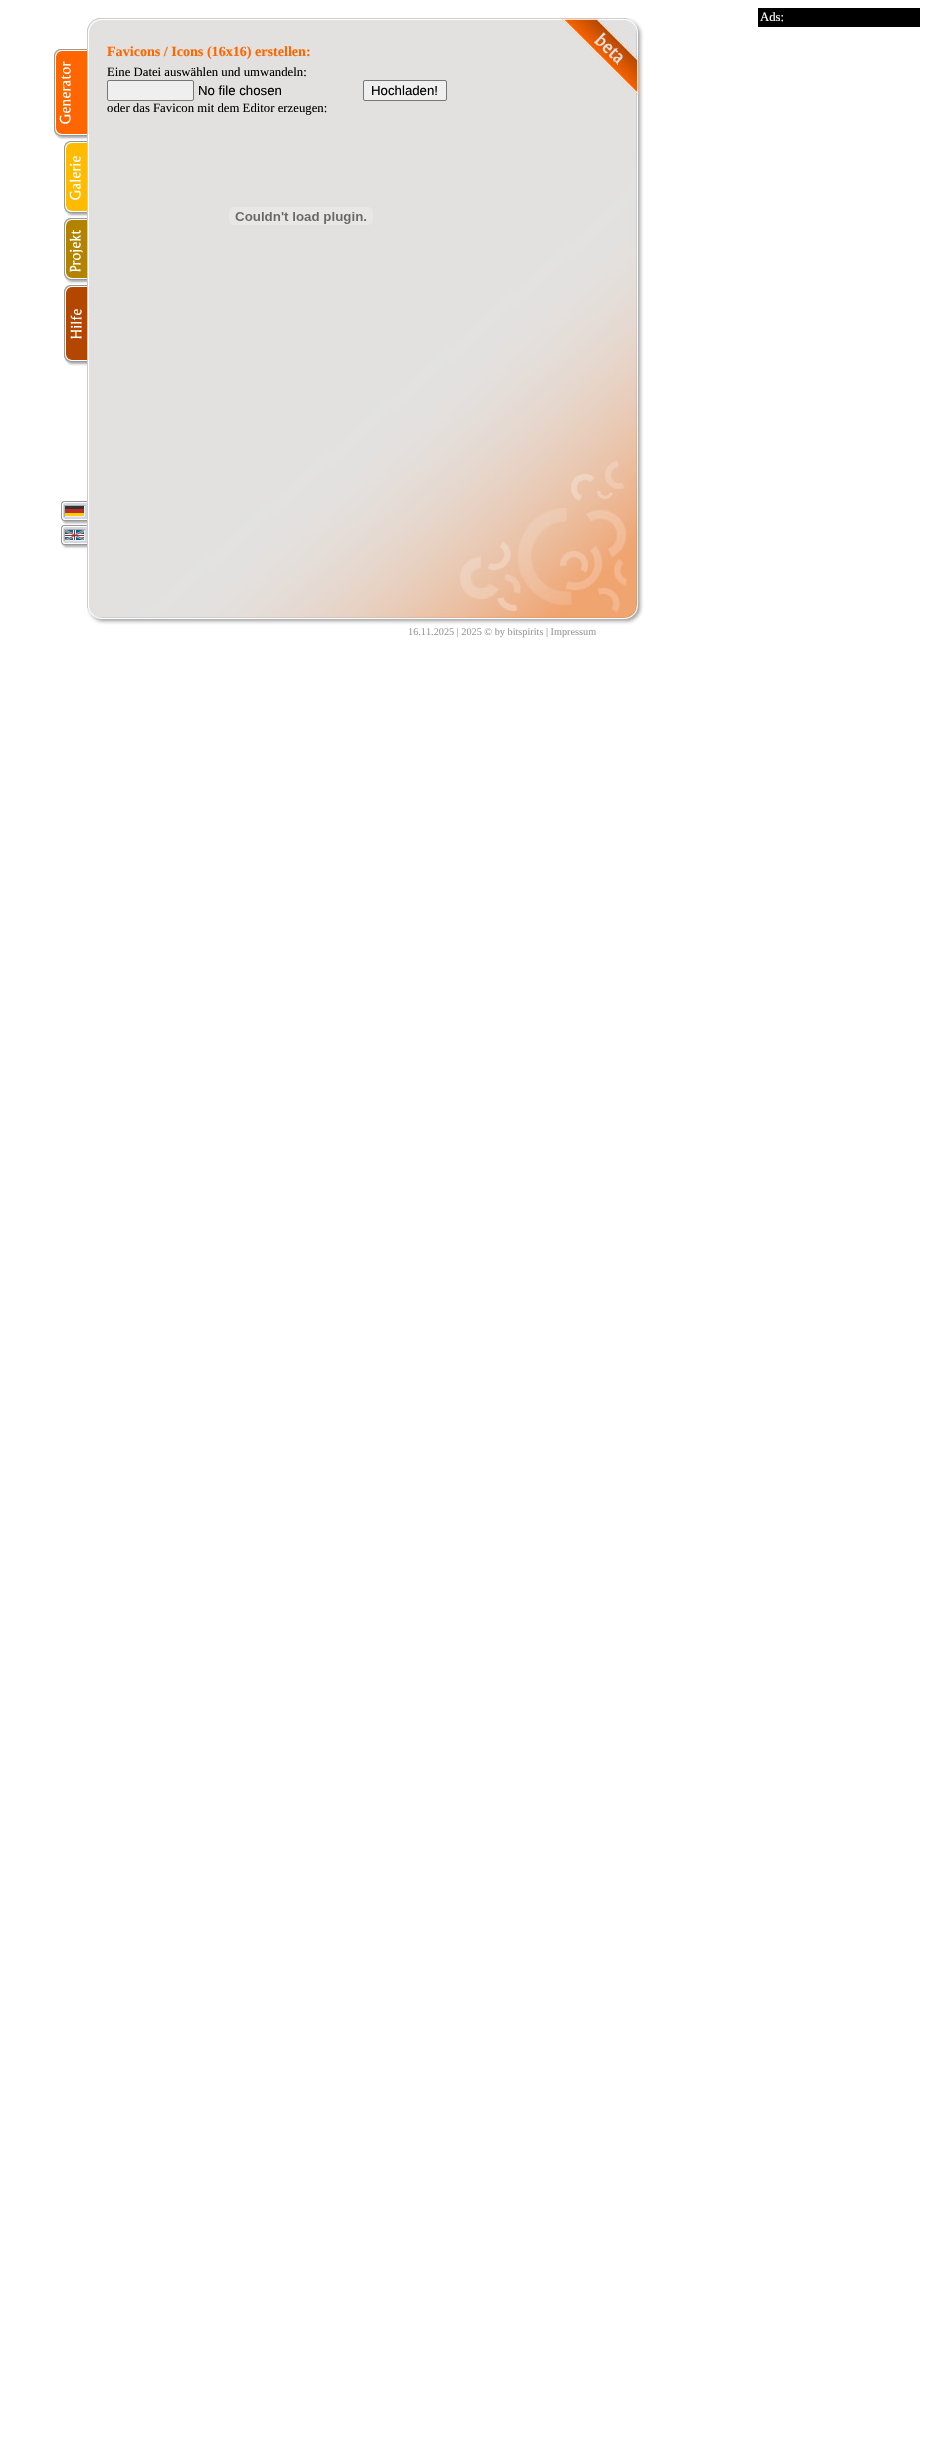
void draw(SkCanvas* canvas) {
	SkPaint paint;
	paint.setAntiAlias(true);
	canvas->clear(0xffffffff);
	paint.setColor(0xff000000);
	canvas->drawRect(SkRect::MakeXYWH(758, 8, 162, 19), paint);
	SkFont f1(fontMgr->matchFamilyStyle("Liberation Serif", SkFontStyle::Normal()), 12.75);
	f1.setSubpixel(true);
	paint.setColor(0xffffffff);
	canvas->drawString("Ads:", 760, 21, f1, paint);
	canvas->drawImageRect(SkImages::DeferredFromEncodedData(SkData::MakeFromFileName("img1.png")), SkRect::MakeXYWH(54, 49, 33, 91), SkSamplingOptions());
	canvas->drawImageRect(SkImages::DeferredFromEncodedData(SkData::MakeFromFileName("img2.png")), SkRect::MakeXYWH(64, 141, 23, 76), SkSamplingOptions());
	canvas->drawImageRect(SkImages::DeferredFromEncodedData(SkData::MakeFromFileName("img3.png")), SkRect::MakeXYWH(64, 218, 23, 66), SkSamplingOptions());
	canvas->drawImageRect(SkImages::DeferredFromEncodedData(SkData::MakeFromFileName("img4.png")), SkRect::MakeXYWH(64, 285, 23, 81), SkSamplingOptions());
	canvas->drawImageRect(SkImages::DeferredFromEncodedData(SkData::MakeFromFileName("img5.png")), SkRect::MakeXYWH(61, 501, 26, 24), SkSamplingOptions());
	canvas->drawImageRect(SkImages::DeferredFromEncodedData(SkData::MakeFromFileName("img6.png")), SkRect::MakeXYWH(61, 525, 26, 24), SkSamplingOptions());
	canvas->drawImageRect(SkImages::DeferredFromEncodedData(SkData::MakeFromFileName("img7.png")), SkRect::MakeXYWH(87, 18, 557, 607), SkSamplingOptions());
	SkFont f2(fontMgr->matchFamilyStyle("Liberation Serif", SkFontStyle::Bold()), 14.1);
	f2.setSubpixel(true);
	paint.setColor(0xffff6600);
	canvas->drawString("Favicons / Icons (16x16) erstellen:", 107, 56, f2, paint);
	paint.setColor(0xff000000);
	canvas->drawString("Eine Datei auswählen und umwandeln:", 107, 76, f1, paint);
	paint.setColor(0xffefefef);
	canvas->drawRoundRect(SkRect::MakeXYWH(107.5, 80.5, 86, 20), 1.5, 1.5, paint);
	paint.setStroke(true);
	paint.setStrokeWidth(1);
	paint.setColor(0xff767676);
	canvas->drawRoundRect(SkRect::MakeXYWH(107.5, 80.5, 86, 20), 1.5, 1.5, paint);
	SkFont f3(fontMgr->matchFamilyStyle("Liberation Sans", SkFontStyle::Normal()), 13.25);
	f3.setSubpixel(true);
	paint.setStroke(false);
	paint.setColor(0xff000000);
	canvas->drawString("No file chosen", 198, 95, f3, paint);
	paint.setColor(0xffefefef);
	canvas->drawRoundRect(SkRect::MakeXYWH(363.5, 80.5, 83, 20), 1.5, 1.5, paint);
	paint.setStroke(true);
	paint.setColor(0xff767676);
	canvas->drawRoundRect(SkRect::MakeXYWH(363.5, 80.5, 83, 20), 1.5, 1.5, paint);
	paint.setStroke(false);
	paint.setColor(0xff000000);
	canvas->drawString("Hochladen!", 371, 95, f3, paint);
	canvas->drawString("oder das Favicon mit dem Editor erzeugen:", 107, 112, f1, paint);
	canvas->drawImageRect(SkImages::DeferredFromEncodedData(SkData::MakeFromFileName("img8.png")), SkRect::MakeXYWH(229, 207, 144, 18), SkSamplingOptions());
	SkFont f4(fontMgr->matchFamilyStyle("Liberation Serif", SkFontStyle::Normal()), 10.25);
	f4.setSubpixel(true);
	paint.setColor(0xff999999);
	canvas->drawString("16.11.2025 | 2025 © by bitspirits | Impressum", 408, 635, f4, paint);
}
